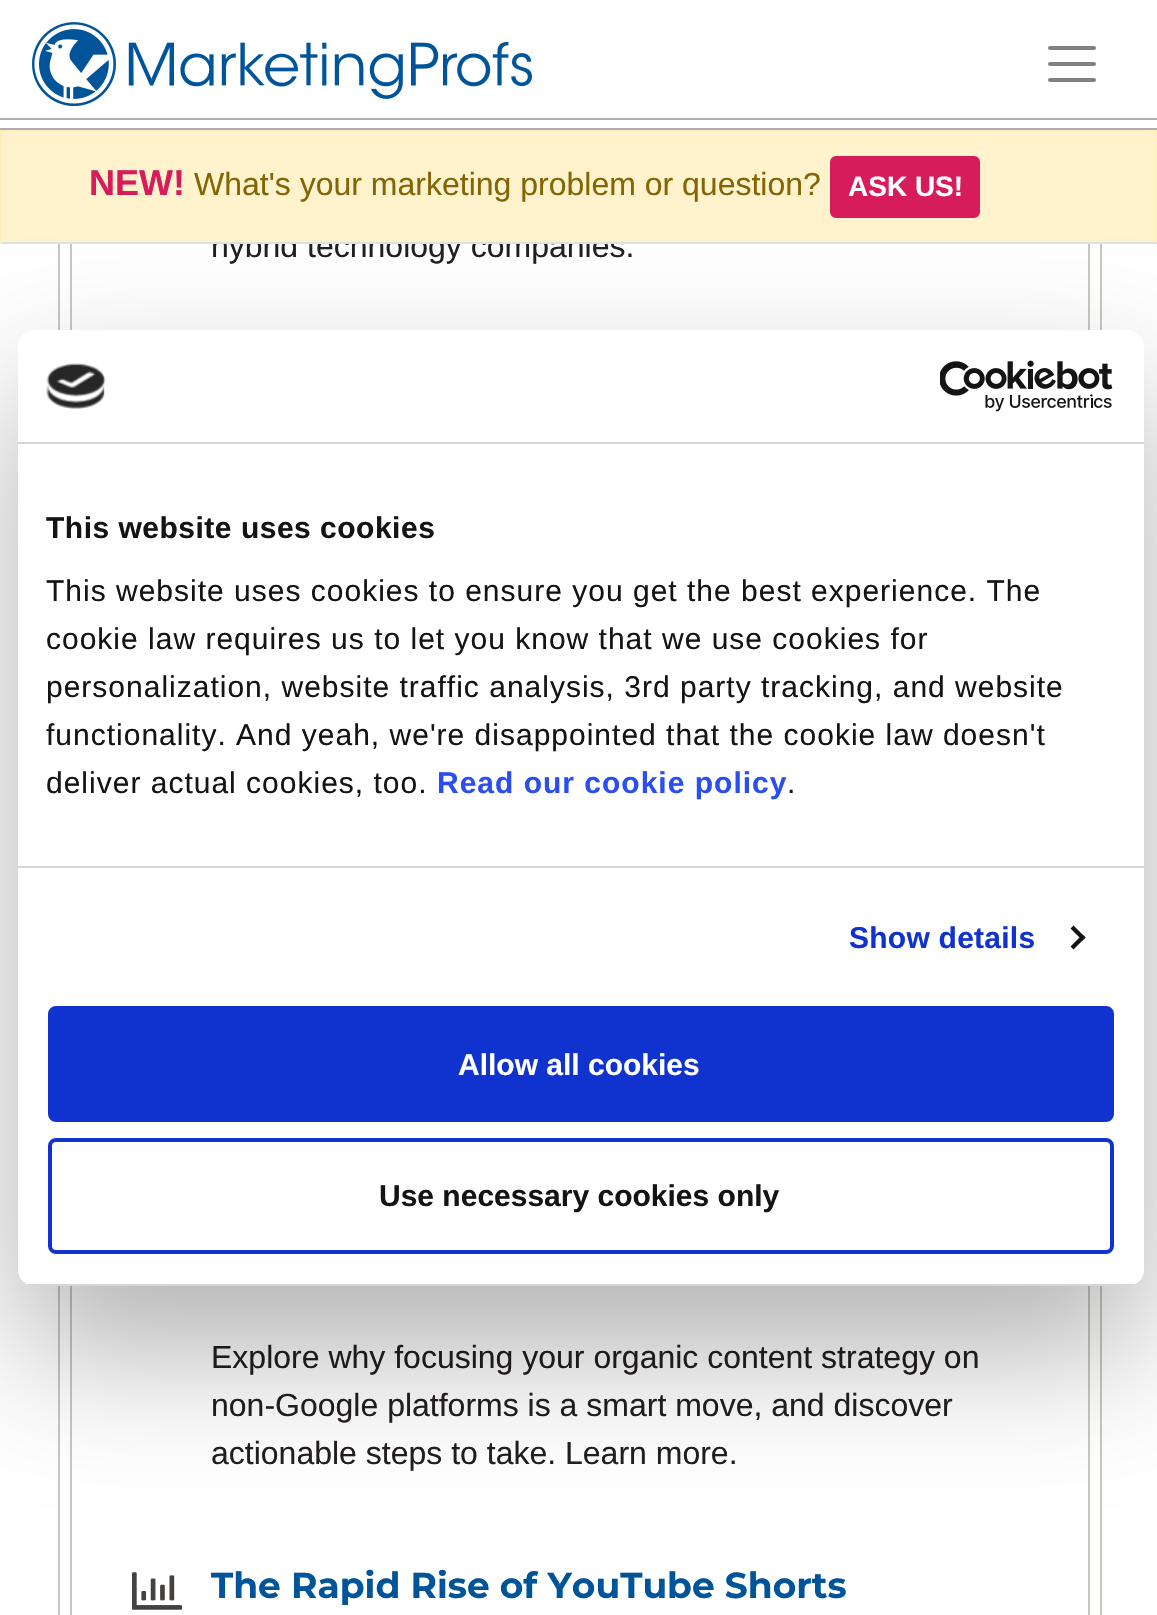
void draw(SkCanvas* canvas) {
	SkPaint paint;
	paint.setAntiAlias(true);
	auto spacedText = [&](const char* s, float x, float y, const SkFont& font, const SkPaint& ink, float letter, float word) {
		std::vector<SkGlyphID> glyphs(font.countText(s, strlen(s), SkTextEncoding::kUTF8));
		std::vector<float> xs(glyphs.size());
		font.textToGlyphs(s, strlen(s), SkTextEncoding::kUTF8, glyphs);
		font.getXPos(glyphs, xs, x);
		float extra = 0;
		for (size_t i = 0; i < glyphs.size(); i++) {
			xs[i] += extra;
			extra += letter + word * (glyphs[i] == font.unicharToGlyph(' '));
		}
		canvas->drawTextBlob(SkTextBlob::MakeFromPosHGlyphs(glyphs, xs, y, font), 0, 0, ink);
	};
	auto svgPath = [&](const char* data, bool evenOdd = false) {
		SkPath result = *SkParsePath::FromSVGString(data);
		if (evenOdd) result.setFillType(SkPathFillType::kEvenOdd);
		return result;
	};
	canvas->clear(0xffffffff);
	paint.setStroke(true);
	paint.setStrokeWidth(12);
	paint.setColor(0xffcac6c1);
	canvas->drawRect(SkRect::MakeXYWH(64, -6, 1032, 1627), paint);
	paint.setStrokeWidth(2);
	canvas->drawRect(SkRect::MakeXYWH(71, -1, 1018, 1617), paint);
	paint.setStrokeWidth(10);
	paint.setColor(0xffffffff);
	canvas->drawRect(SkRect::MakeXYWH(65, -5, 1030, 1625), paint);
	paint.setStroke(false);
	canvas->drawRect(SkRect::MakeXYWH(58, 0, 1044, 128), paint);
	paint.setColor(0xffafadb2);
	canvas->drawRect(SkRect::MakeXYWH(0, 128, 1157, 2), paint);
	canvas->drawImageRect(SkImages::DeferredFromEncodedData(SkData::MakeFromFileName("img1.png")), SkRect::MakeXYWH(32, 22, 500, 84), SkSamplingOptions());
	paint.setStroke(true);
	paint.setStrokeWidth(4);
	paint.setStrokeCap(SkPaint::kRound_Cap);
	paint.setColor(0xff808080);
	canvas->drawPath(svgPath("M1050 48H1094M1050 64H1094M1050 80H1094"), paint);
	paint.setStroke(false);
	paint.setColor(0xffafadb2);
	canvas->drawRect(SkRect::MakeXYWH(0, 118, 1157, 2), paint);
	SkFont f1(fontMgr->matchFamilyStyle("Liberation Sans", SkFontStyle::Normal()), 32);
	f1.setSubpixel(true);
	paint.setColor(0xff231f20);
	canvas->drawString("hybrid technology companies.", 211, 257, f1, paint);
	paint.setColor(0xfffff3cd);
	canvas->drawRect(SkRect::MakeXYWH(2, 132, 1154, 110), paint);
	paint.setColor(0xffffeeba);
	canvas->drawRect(SkRect::MakeXYWH(0, 130, 1157, 2), paint);
	canvas->drawRect(SkRect::MakeXYWH(1156, 130, 1, 114), paint);
	paint.setColor(0xffdee2e6);
	canvas->drawRect(SkRect::MakeXYWH(0, 242, 1157, 2), paint);
	paint.setColor(0xffffeeba);
	canvas->drawRect(SkRect::MakeXYWH(0, 130, 2, 114), paint);
	SkFont f2(fontMgr->matchFamilyStyle("Liberation Sans", SkFontStyle::Bold()), 36);
	f2.setSubpixel(true);
	paint.setColor(0xffd61c5b);
	canvas->drawString("NEW!", 89, 195, f2, paint);
	paint.setColor(0xff856404);
	canvas->drawString("What's your marketing problem or question?", 194, 195, f1, paint);
	paint.setColor(0xffd61c5b);
	canvas->drawRoundRect(SkRect::MakeXYWH(831, 157, 148, 60), 5, 5, paint);
	paint.setStroke(true);
	paint.setStrokeWidth(2);
	paint.setStrokeCap(SkPaint::kButt_Cap);
	canvas->drawRoundRect(SkRect::MakeXYWH(831, 157, 148, 60), 5, 5, paint);
	SkFont f3(fontMgr->matchFamilyStyle("Liberation Sans", SkFontStyle::Bold()), 28);
	f3.setSubpixel(true);
	paint.setStroke(false);
	paint.setColor(0xffffffff);
	canvas->drawString("ASK US!", 848, 196, f3, paint);
	paint.setColor(0xff231f20);
	canvas->drawString("Explore why focusing your organic content strategy on", 211, 1368, f1, paint);
	canvas->drawString("non-Google platforms is a smart move, and discover", 211, 1416, f1, paint);
	canvas->drawString("actionable steps to take. Learn more.", 211, 1464, f1, paint);
	canvas->drawImageRect(SkImages::DeferredFromEncodedData(SkData::MakeFromFileName("img2.png")), SkRect::MakeXYWH(132, 1572, 50, 38), SkSamplingOptions());
	SkFont f4(fontMgr->matchFamilyStyle("Montserrat", SkFontStyle::Bold()), 36);
	f4.setSubpixel(true);
	paint.setColor(0xff00549a);
	canvas->drawString("The Rapid Rise of YouTube Shorts", 211, 1598, f4, paint);
	paint.setColor(0x4d000000);
	paint.setMaskFilter(SkMaskFilter::MakeBlur(kNormal_SkBlurStyle, 68));
	canvas->drawRoundRect(SkRect::MakeXYWH(18, 394, 1126, 956), 16, 16, paint);
	paint.setMaskFilter(nullptr);
	paint.setColor(0xffffffff);
	canvas->drawRoundRect(SkRect::MakeXYWH(18, 330, 1126, 956), 16, 16, paint);
	paint.setColor(0xffd6d6d6);
	canvas->drawRect(SkRect::MakeXYWH(18, 442, 1126, 2), paint);
	canvas->drawImageRect(SkImages::DeferredFromEncodedData(SkData::MakeFromFileName("img3.png")), SkRect::MakeXYWH(46, 363, 60, 46), SkSamplingOptions());
	canvas->drawImageRect(SkImages::DeferredFromEncodedData(SkData::MakeFromFileName("img4.png")), SkRect::MakeXYWH(940, 360, 173, 52), SkSamplingOptions());
	canvas->drawRect(SkRect::MakeXYWH(18, 866, 1126, 2), paint);
	SkFont f5(fontMgr->matchFamilyStyle("Liberation Sans", SkFontStyle::Bold()), 30);
	f5.setSubpixel(true);
	paint.setColor(0xff141414);
	spacedText("This website uses cookies", 46, 538, f5, paint, 0.5, 0);
	SkFont f6(fontMgr->matchFamilyStyle("Liberation Sans", SkFontStyle::Normal()), 30);
	f6.setSubpixel(true);
	spacedText("This website uses cookies to ensure you get the best experience. The", 46, 601, f6, paint, 1, 0);
	spacedText("cookie law requires us to let you know that we use cookies for", 46, 649, f6, paint, 1, 0);
	spacedText("personalization, website traffic analysis, 3rd party tracking, and website", 46, 697, f6, paint, 1, 0);
	spacedText("functionality. And yeah, we're disappointed that the cookie law doesn't", 46, 745, f6, paint, 1, 0);
	spacedText("deliver actual cookies, too.", 46, 793, f6, paint, 1, 0);
	paint.setColor(0xff2a4eef);
	spacedText("Read our cookie policy", 437, 793, f5, paint, 1, 0);
	paint.setColor(0xff141414);
	spacedText(".", 787, 793, f6, paint, 1, 0);
	paint.setColor(0xff1032cf);
	spacedText("Show details", 849, 948, f5, paint, 0.25, 0);
	paint.setColor(0xff141414);
	canvas->drawPath(svgPath("M1073.5 925.5L1085.5 937.5L1082.5 940.5L1070.5 928.5Z"), paint);
	canvas->drawPath(svgPath("M1082.5 934.5L1085.5 937.5L1073.5 949.5L1070.5 946.5Z"), paint);
	canvas->save();
	canvas->clipPath(svgPath("M34 330H1128C1137 330 1144 337 1144 346V1270C1144 1279 1137 1286 1128 1286H34C25 1286 18 1279 18 1270V346C18 337 25 330 34 330Z"), true);
	paint.setColor(0xffd6d6d6);
	canvas->drawRect(SkRect::MakeXYWH(18, 1284, 1126, 2), paint);
	canvas->restore();
	paint.setColor(0xff1032cf);
	canvas->drawRoundRect(SkRect::MakeXYWH(50, 1008, 1062, 112), 6, 6, paint);
	paint.setStroke(true);
	paint.setStrokeWidth(4);
	canvas->drawRoundRect(SkRect::MakeXYWH(50, 1008, 1062, 112), 6, 6, paint);
	paint.setStroke(false);
	paint.setColor(0xffffffff);
	canvas->drawString("Allow all cookies", 458, 1075, f5, paint);
	paint.setStroke(true);
	paint.setColor(0xff1032cf);
	canvas->drawRoundRect(SkRect::MakeXYWH(50, 1140, 1062, 112), 6, 6, paint);
	paint.setStroke(false);
	paint.setColor(0xff141414);
	canvas->drawString("Use necessary cookies only", 379, 1206, f5, paint);
}
